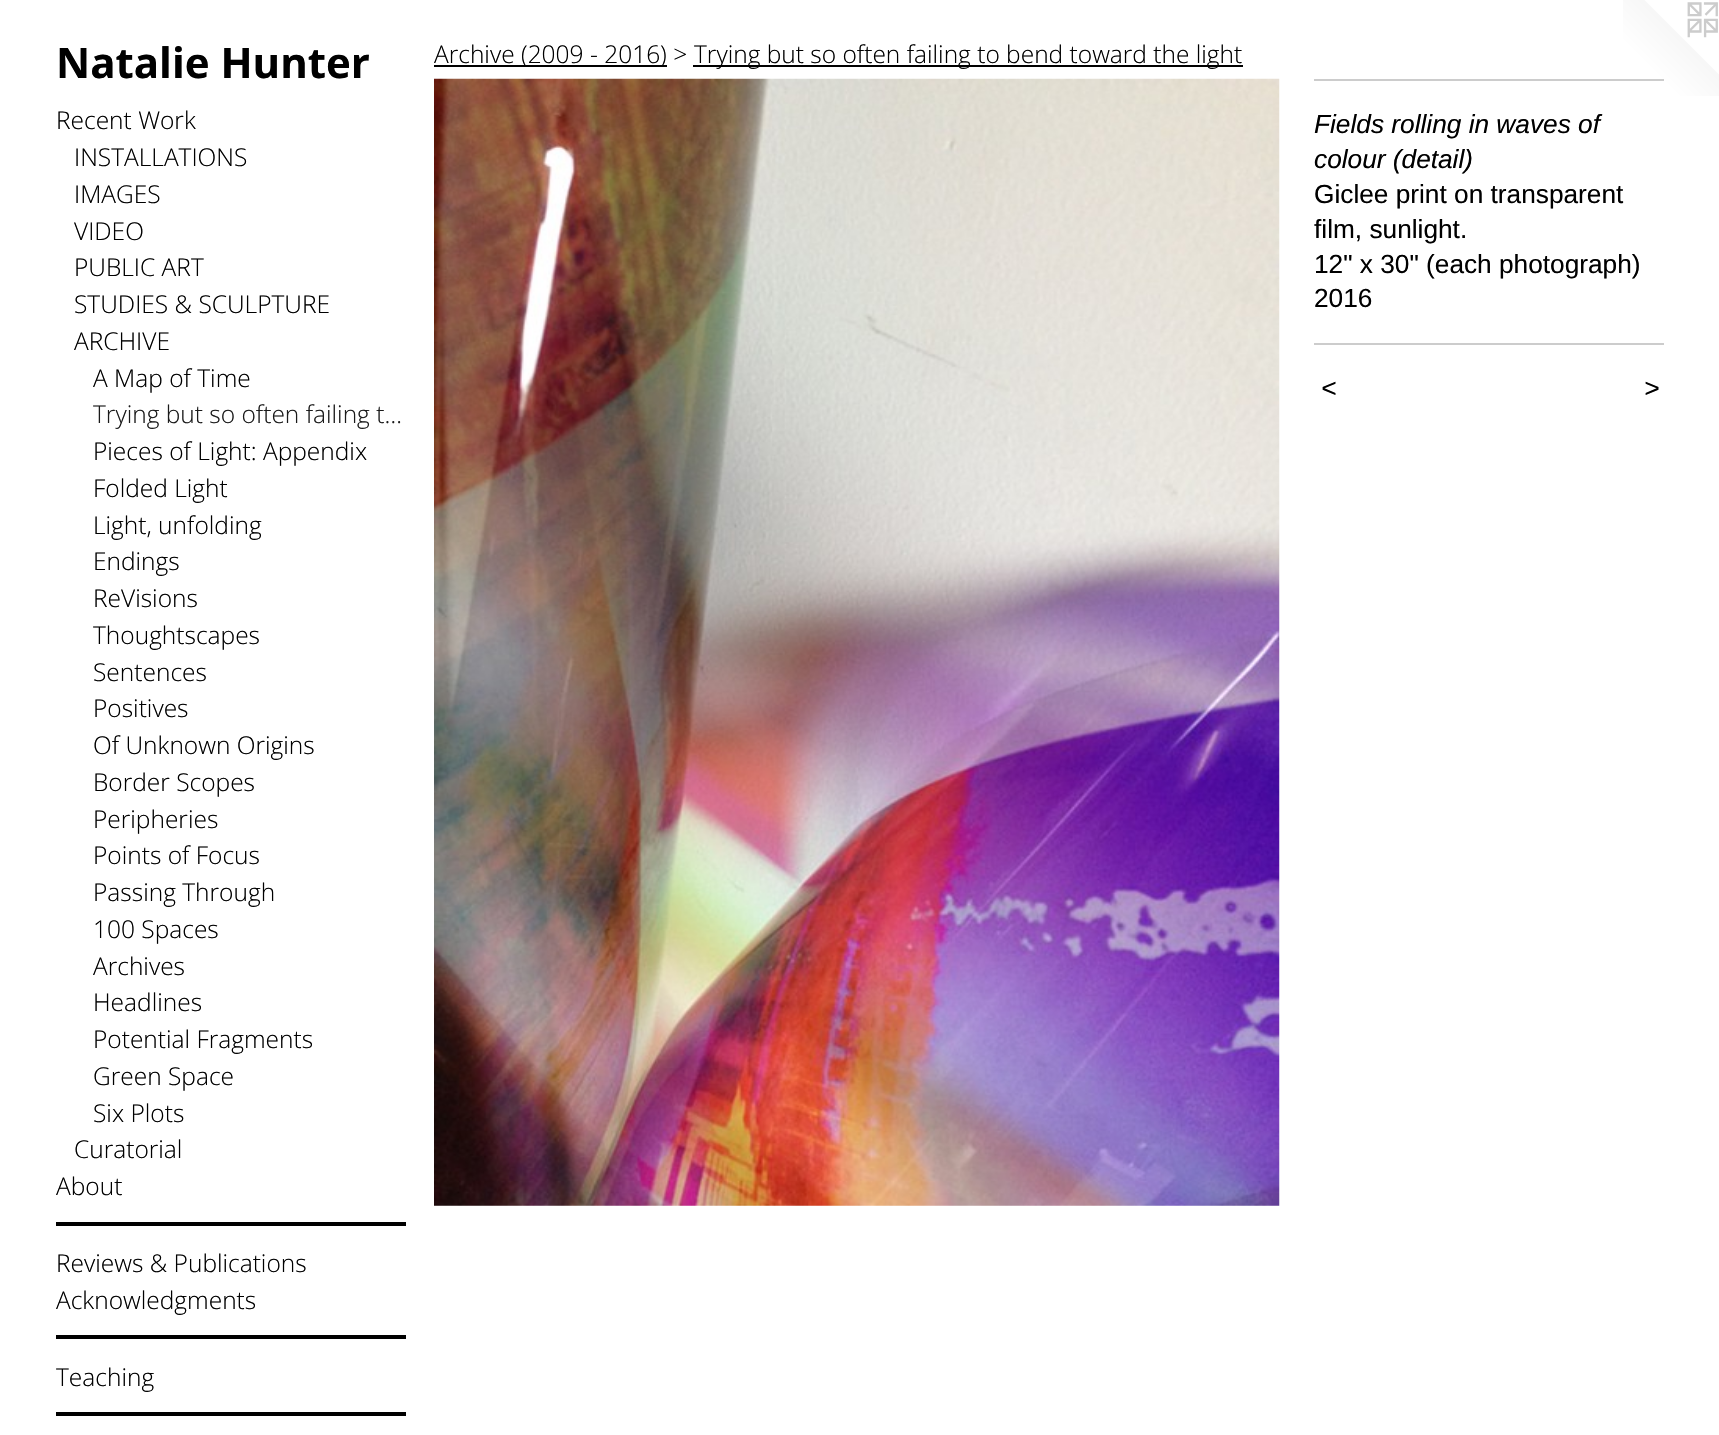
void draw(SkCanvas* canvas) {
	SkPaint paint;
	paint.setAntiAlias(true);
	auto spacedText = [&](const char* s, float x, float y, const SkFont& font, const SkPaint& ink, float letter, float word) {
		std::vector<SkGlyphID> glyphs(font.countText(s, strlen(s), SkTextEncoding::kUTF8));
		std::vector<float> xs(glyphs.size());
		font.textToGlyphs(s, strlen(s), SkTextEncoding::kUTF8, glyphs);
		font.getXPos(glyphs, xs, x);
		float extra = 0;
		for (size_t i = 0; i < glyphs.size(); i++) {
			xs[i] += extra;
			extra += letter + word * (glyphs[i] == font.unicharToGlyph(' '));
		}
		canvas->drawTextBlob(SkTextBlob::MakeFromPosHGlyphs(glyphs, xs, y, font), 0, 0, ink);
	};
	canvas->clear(0xffffffff);
	SkFont f1(fontMgr->matchFamilyStyle("Open Sans", SkFontStyle::Bold()), 42);
	f1.setSubpixel(true);
	paint.setColor(0xff000000);
	canvas->drawString("Natalie Hunter", 56, 78, f1, paint);
	SkFont f2(fontMgr->matchFamilyStyle("Open Sans", SkFontStyle(300, SkFontStyle::kNormal_Width, SkFontStyle::kUpright_Slant)), 24.5);
	f2.setSubpixel(true);
	canvas->drawString("Recent Work", 56, 129, f2, paint);
	canvas->drawString("INSTALLATIONS", 74, 166, f2, paint);
	canvas->drawString("IMAGES", 74, 203, f2, paint);
	canvas->drawString("VIDEO", 74, 240, f2, paint);
	canvas->drawString("PUBLIC ART", 74, 276, f2, paint);
	canvas->drawString("STUDIES & SCULPTURE", 74, 313, f2, paint);
	canvas->drawString("ARCHIVE", 74, 350, f2, paint);
	canvas->drawString("A Map of Time", 93, 387, f2, paint);
	paint.setColor(0xff1a1a1a);
	canvas->drawString("Trying but so often failing t…", 93, 423, f2, paint);
	paint.setColor(0xff000000);
	canvas->drawString("Pieces of Light: Appendix", 93, 460, f2, paint);
	canvas->drawString("Folded Light", 93, 497, f2, paint);
	canvas->drawString("Light, unfolding", 93, 534, f2, paint);
	canvas->drawString("Endings", 93, 570, f2, paint);
	canvas->drawString("ReVisions", 93, 607, f2, paint);
	canvas->drawString("Thoughtscapes", 93, 644, f2, paint);
	canvas->drawString("Sentences", 93, 681, f2, paint);
	canvas->drawString("Positives", 93, 717, f2, paint);
	canvas->drawString("Of Unknown Origins", 93, 754, f2, paint);
	canvas->drawString("Border Scopes", 93, 791, f2, paint);
	canvas->drawString("Peripheries", 93, 828, f2, paint);
	canvas->drawString("Points of Focus", 93, 864, f2, paint);
	canvas->drawString("Passing Through", 93, 901, f2, paint);
	canvas->drawString("100 Spaces", 93, 938, f2, paint);
	canvas->drawString("Archives", 93, 975, f2, paint);
	canvas->drawString("Headlines", 93, 1011, f2, paint);
	canvas->drawString("Potential Fragments", 93, 1048, f2, paint);
	canvas->drawString("Green Space", 93, 1085, f2, paint);
	canvas->drawString("Six Plots", 93, 1122, f2, paint);
	canvas->drawString("Curatorial", 74, 1158, f2, paint);
	canvas->drawString("About", 56, 1195, f2, paint);
	canvas->drawRect(SkRect::MakeXYWH(56, 1222, 350, 4), paint);
	canvas->drawString("Reviews & Publications", 56, 1272, f2, paint);
	canvas->drawString("Acknowledgments", 56, 1309, f2, paint);
	canvas->drawRect(SkRect::MakeXYWH(56, 1335, 350, 4), paint);
	canvas->drawString("Teaching", 56, 1386, f2, paint);
	canvas->drawRect(SkRect::MakeXYWH(56, 1412, 350, 4), paint);
	canvas->drawRect(SkRect::MakeXYWH(434, 65, 233, 2), paint);
	canvas->drawString("Archive (2009 - 2016) >", 434, 63, f2, paint);
	canvas->drawRect(SkRect::MakeXYWH(693, 65, 550, 2), paint);
	canvas->drawString("Trying but so often failing to bend toward the light", 694, 63, f2, paint);
	canvas->drawImageRect(SkImages::DeferredFromEncodedData(SkData::MakeFromFileName("img1.png")), SkRect::MakeXYWH(434, 78, 846, 1128), SkSamplingOptions());
	canvas->drawImageRect(SkImages::DeferredFromEncodedData(SkData::MakeFromFileName("img2.png")), SkRect::MakeXYWH(1623, 0, 96, 96), SkSamplingOptions());
	paint.setColor(0xffcccccc);
	canvas->drawRect(SkRect::MakeXYWH(1314, 79, 350, 2), paint);
	SkFont f3(fontMgr->matchFamilyStyle("Liberation Sans", SkFontStyle::Italic()), 26.25);
	f3.setSubpixel(true);
	paint.setColor(0xff000000);
	canvas->drawString("Fields rolling in waves of", 1314, 133, f3, paint);
	canvas->drawString("colour (detail)", 1314, 168, f3, paint);
	SkFont f4(fontMgr->matchFamilyStyle("Liberation Sans", SkFontStyle::Normal()), 26.25);
	f4.setSubpixel(true);
	canvas->drawString("Giclee print on transparent", 1314, 203, f4, paint);
	canvas->drawString("film, sunlight.", 1314, 238, f4, paint);
	canvas->drawString("12\" x 30\" (each photograph)", 1314, 273, f4, paint);
	canvas->drawString("2016", 1314, 307, f4, paint);
	paint.setColor(0xffcccccc);
	canvas->drawRect(SkRect::MakeXYWH(1314, 343, 350, 2), paint);
	paint.setColor(0xff000000);
	spacedText("<", 1321, 397, f3, paint, 2, 0);
	spacedText(">", 1644, 397, f3, paint, 2, 0);
}
